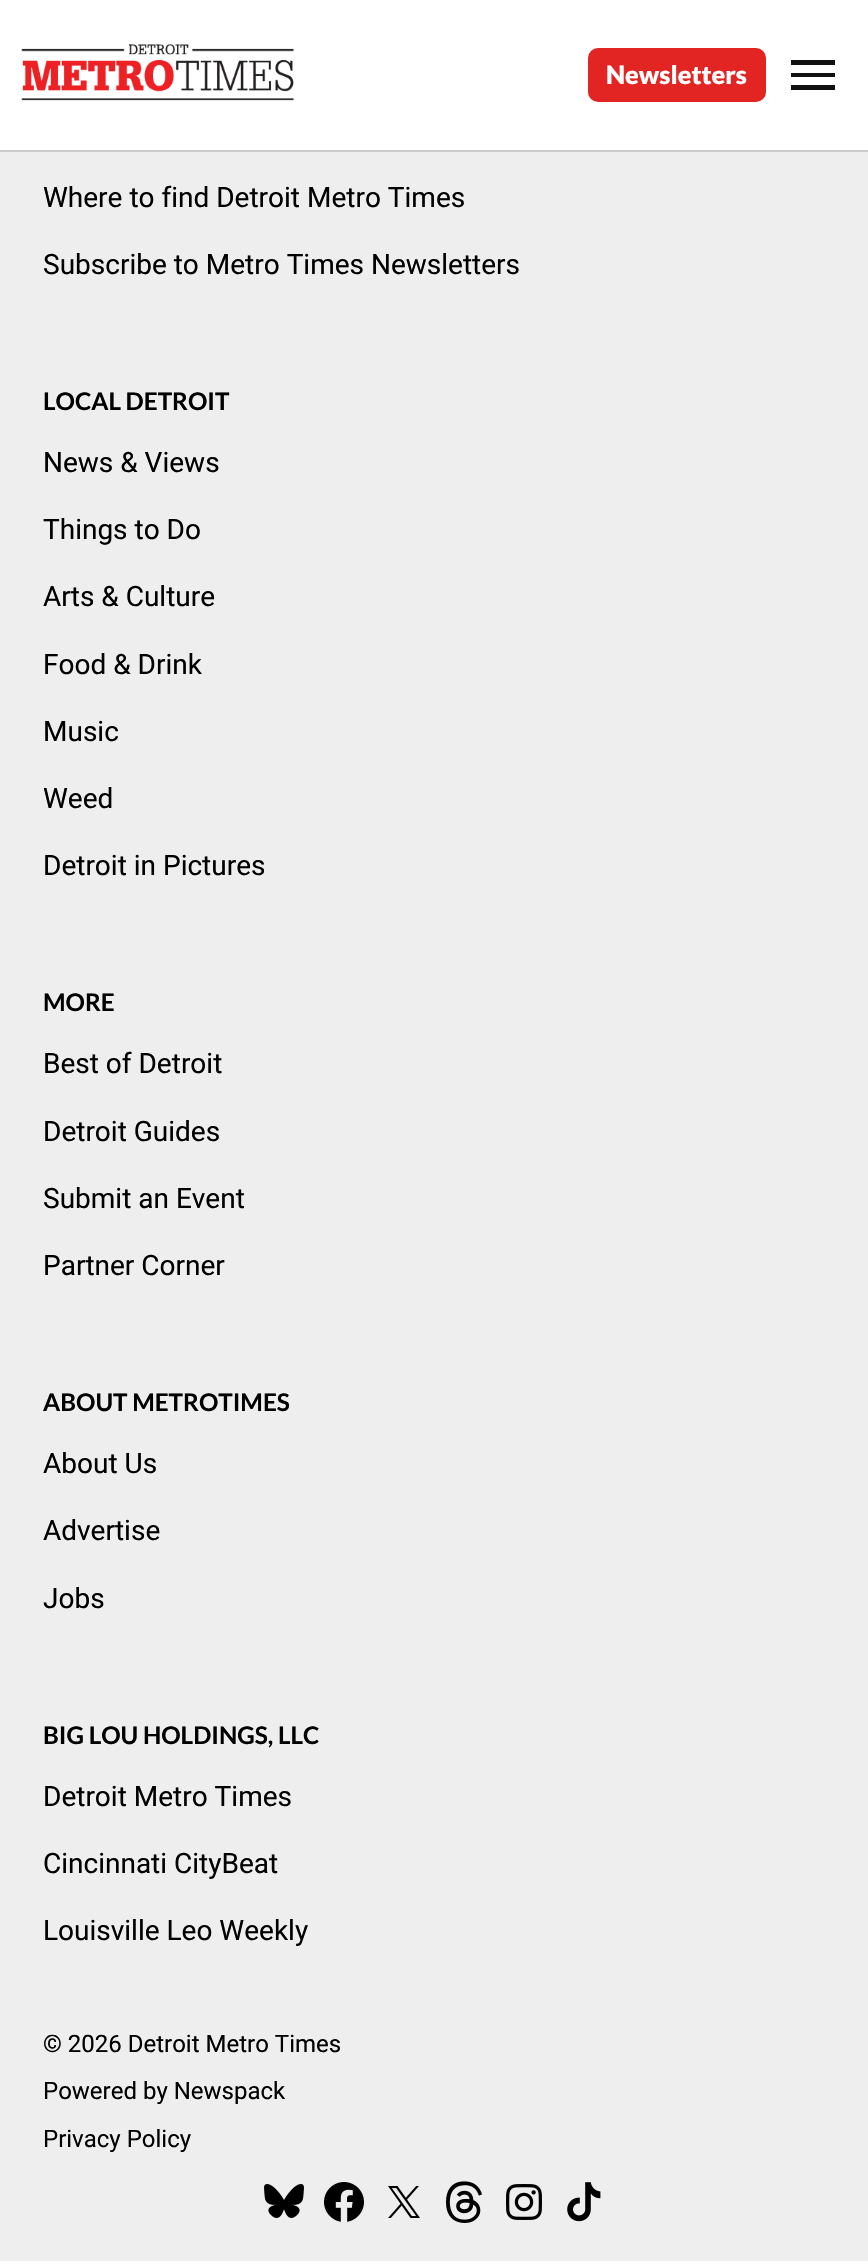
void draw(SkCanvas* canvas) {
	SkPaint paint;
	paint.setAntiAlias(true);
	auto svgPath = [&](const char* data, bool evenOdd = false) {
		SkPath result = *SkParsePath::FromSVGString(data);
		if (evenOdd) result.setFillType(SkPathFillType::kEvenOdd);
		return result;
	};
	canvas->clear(0xffeeeeee);
	paint.setColor(0xffffffff);
	canvas->drawRect(SkRect::MakeXYWH(0, 0, 868, 150), paint);
	paint.setColor(0xffcccccc);
	canvas->drawRect(SkRect::MakeXYWH(0, 150, 868, 2), paint);
	canvas->drawImageRect(SkImages::DeferredFromEncodedData(SkData::MakeFromFileName("img1.png")), SkRect::MakeXYWH(21, 44, 273, 57), SkSamplingOptions());
	paint.setColor(0xffe22422);
	canvas->drawRoundRect(SkRect::MakeXYWH(588, 48, 178, 54), 10, 10, paint);
	SkFont f1(fontMgr->matchFamilyStyle("Lato", SkFontStyle(900, SkFontStyle::kNormal_Width, SkFontStyle::kUpright_Slant)), 25.25);
	f1.setSubpixel(true);
	paint.setColor(0xffffffff);
	canvas->drawString("Newsletters", 606, 84, f1, paint);
	paint.setColor(0xff111111);
	canvas->drawPath(svgPath("M791 90H835V85H791ZM791 77H835V73H791ZM791 60V65H835V60Z"), paint);
	SkFont f2(fontMgr->matchFamilyStyle("Roboto", SkFontStyle::Normal()), 28);
	f2.setSubpixel(true);
	paint.setColor(0xff000000);
	canvas->drawString("Where to find Detroit Metro Times", 43, 207, f2, paint);
	canvas->drawString("Subscribe to Metro Times Newsletters", 43, 274, f2, paint);
	SkFont f3(fontMgr->matchFamilyStyle("Lato", SkFontStyle::Bold()), 24.25);
	f3.setSubpixel(true);
	canvas->drawString("LOCAL DETROIT", 43, 410, f3, paint);
	canvas->drawString("News & Views", 43, 472, f2, paint);
	canvas->drawString("Things to Do", 43, 539, f2, paint);
	canvas->drawString("Arts & Culture", 43, 606, f2, paint);
	canvas->drawString("Food & Drink", 43, 674, f2, paint);
	canvas->drawString("Music", 43, 741, f2, paint);
	canvas->drawString("Weed", 43, 808, f2, paint);
	canvas->drawString("Detroit in Pictures", 43, 875, f2, paint);
	canvas->drawString("MORE", 43, 1011, f3, paint);
	canvas->drawString("Best of Detroit", 43, 1073, f2, paint);
	canvas->drawString("Detroit Guides", 43, 1141, f2, paint);
	canvas->drawString("Submit an Event", 43, 1208, f2, paint);
	canvas->drawString("Partner Corner", 43, 1275, f2, paint);
	canvas->drawString("ABOUT METROTIMES", 43, 1411, f3, paint);
	canvas->drawString("About Us", 43, 1473, f2, paint);
	canvas->drawString("Advertise", 43, 1540, f2, paint);
	canvas->drawString("Jobs", 43, 1608, f2, paint);
	canvas->drawString("BIG LOU HOLDINGS, LLC", 43, 1744, f3, paint);
	canvas->drawString("Detroit Metro Times", 43, 1806, f2, paint);
	canvas->drawString("Cincinnati CityBeat", 43, 1873, f2, paint);
	canvas->drawString("Louisville Leo Weekly", 43, 1940, f2, paint);
	SkFont f4(fontMgr->matchFamilyStyle("Roboto", SkFontStyle::Normal()), 24);
	f4.setSubpixel(true);
	canvas->drawString("© 2026 Detroit Metro Times", 43, 2052, f4, paint);
	canvas->drawString("Powered by Newspack", 43, 2099, f4, paint);
	canvas->drawString("Privacy Policy", 43, 2147, f4, paint);
	canvas->drawImageRect(SkImages::DeferredFromEncodedData(SkData::MakeFromFileName("img2.png")), SkRect::MakeXYWH(264, 2184, 40, 34), SkSamplingOptions());
	canvas->drawImageRect(SkImages::DeferredFromEncodedData(SkData::MakeFromFileName("img3.png")), SkRect::MakeXYWH(324, 2182, 40, 40), SkSamplingOptions());
	canvas->drawImageRect(SkImages::DeferredFromEncodedData(SkData::MakeFromFileName("img4.png")), SkRect::MakeXYWH(388, 2186, 32, 32), SkSamplingOptions());
	canvas->drawImageRect(SkImages::DeferredFromEncodedData(SkData::MakeFromFileName("img5.png")), SkRect::MakeXYWH(446, 2181, 36, 42), SkSamplingOptions());
	canvas->drawImageRect(SkImages::DeferredFromEncodedData(SkData::MakeFromFileName("img6.png")), SkRect::MakeXYWH(506, 2184, 36, 36), SkSamplingOptions());
	canvas->drawImageRect(SkImages::DeferredFromEncodedData(SkData::MakeFromFileName("img7.png")), SkRect::MakeXYWH(567, 2182, 34, 40), SkSamplingOptions());
}
